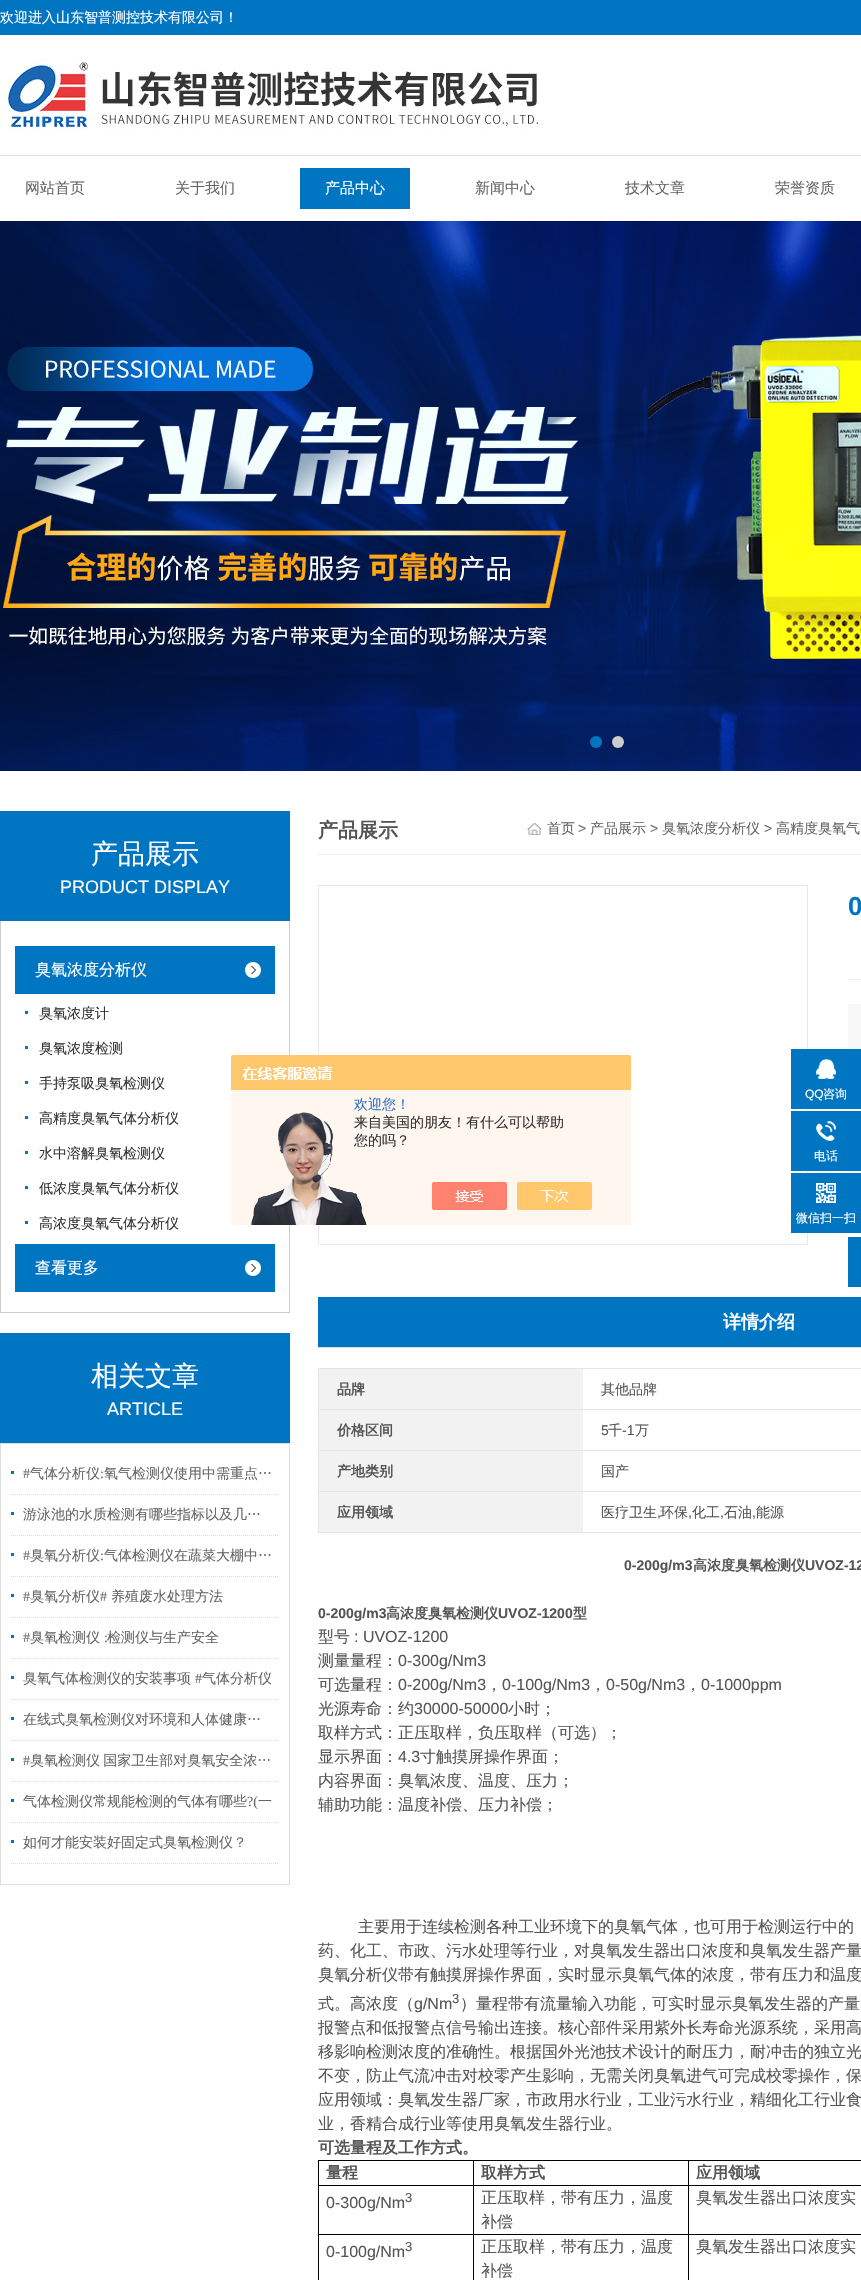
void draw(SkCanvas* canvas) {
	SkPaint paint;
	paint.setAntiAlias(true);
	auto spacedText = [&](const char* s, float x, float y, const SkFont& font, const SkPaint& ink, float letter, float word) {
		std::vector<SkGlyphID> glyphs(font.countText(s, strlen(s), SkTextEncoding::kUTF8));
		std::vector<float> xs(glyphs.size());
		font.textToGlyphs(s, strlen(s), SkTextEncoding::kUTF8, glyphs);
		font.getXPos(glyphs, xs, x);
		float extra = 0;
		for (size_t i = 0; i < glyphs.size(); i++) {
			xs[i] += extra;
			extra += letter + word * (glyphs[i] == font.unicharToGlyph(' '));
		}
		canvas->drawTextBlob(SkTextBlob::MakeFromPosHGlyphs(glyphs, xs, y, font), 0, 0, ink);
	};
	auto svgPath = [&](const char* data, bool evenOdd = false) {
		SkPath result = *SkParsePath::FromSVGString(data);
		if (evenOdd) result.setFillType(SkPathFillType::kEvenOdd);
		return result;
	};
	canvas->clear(0xffffffff);
	paint.setColor(0xff0075c1);
	canvas->drawRect(SkRect::MakeXYWH(0, 0, 861, 35), paint);
	SkFont f1(fontMgr->matchFamilyStyle("WenQuanYi Zen Hei", SkFontStyle(500, SkFontStyle::kNormal_Width, SkFontStyle::kUpright_Slant)), 14);
	f1.setSubpixel(true);
	paint.setColor(0xffffffff);
	canvas->drawString("欢迎进入山东智普测控技术有限公司！", 0, 22, f1, paint);
	canvas->drawImageRect(SkImages::DeferredFromEncodedData(SkData::MakeFromFileName("img1.png")), SkRect::MakeXYWH(8, 59, 533, 72), SkSamplingOptions());
	paint.setColor(0xffdddddd);
	canvas->drawRect(SkRect::MakeXYWH(0, 155, 861, 1), paint);
	SkFont f2(fontMgr->matchFamilyStyle("WenQuanYi Zen Hei", SkFontStyle(500, SkFontStyle::kNormal_Width, SkFontStyle::kUpright_Slant)), 15);
	f2.setSubpixel(true);
	paint.setColor(0xff666666);
	canvas->drawString("网站首页", 25, 193, f2, paint);
	canvas->drawString("关于我们", 175, 193, f2, paint);
	paint.setColor(0xff0075c1);
	canvas->drawRect(SkRect::MakeXYWH(300, 168, 110, 41), paint);
	paint.setColor(0xffffffff);
	canvas->drawString("产品中心", 325, 193, f2, paint);
	paint.setColor(0xff666666);
	canvas->drawString("新闻中心", 475, 193, f2, paint);
	canvas->drawString("技术文章", 625, 193, f2, paint);
	canvas->drawString("荣誉资质", 775, 193, f2, paint);
	canvas->drawImageRect(SkImages::DeferredFromEncodedData(SkData::MakeFromFileName("img2.png")), SkRect::MakeXYWH(0, 221, 861, 550), SkSamplingOptions());
	paint.setColor(0xff0075c1);
	canvas->drawCircle(596, 742, 6, paint);
	paint.setColor(0xffcccccc);
	canvas->drawCircle(618, 742, 6, paint);
	paint.setColor(0xff0075c1);
	canvas->drawRect(SkRect::MakeXYWH(0, 811, 290, 110), paint);
	SkFont f3(fontMgr->matchFamilyStyle("WenQuanYi Zen Hei", SkFontStyle(500, SkFontStyle::kNormal_Width, SkFontStyle::kUpright_Slant)), 27);
	f3.setSubpixel(true);
	paint.setColor(0xffffffff);
	canvas->drawString("产品展示", 91, 863, f3, paint);
	SkFont f4(fontMgr->matchFamilyStyle("Liberation Sans", SkFontStyle::Normal()), 18);
	f4.setSubpixel(true);
	canvas->drawString("PRODUCT DISPLAY", 60, 893, f4, paint);
	paint.setColor(0xffcccccc);
	canvas->drawRect(SkRect::MakeXYWH(289, 921, 1, 392), paint);
	canvas->drawRect(SkRect::MakeXYWH(0, 1312, 290, 1), paint);
	canvas->drawRect(SkRect::MakeXYWH(0, 921, 1, 392), paint);
	paint.setColor(0xff0075c1);
	canvas->drawRect(SkRect::MakeXYWH(15, 946, 260, 48), paint);
	canvas->drawImageRect(SkImages::DeferredFromEncodedData(SkData::MakeFromFileName("img3.png")), SkRect::MakeXYWH(245, 962, 16, 16), SkSamplingOptions());
	SkFont f5(fontMgr->matchFamilyStyle("WenQuanYi Zen Hei", SkFontStyle(500, SkFontStyle::kNormal_Width, SkFontStyle::kUpright_Slant)), 16);
	f5.setSubpixel(true);
	paint.setColor(0xffffffff);
	canvas->drawString("臭氧浓度分析仪", 35, 975, f5, paint);
	paint.setColor(0xff0075c1);
	canvas->drawRect(SkRect::MakeXYWH(25, 1011, 3, 3), paint);
	paint.setColor(0xff333333);
	canvas->drawString("臭氧浓度计", 39, 1018, f1, paint);
	paint.setColor(0xff0075c1);
	canvas->drawRect(SkRect::MakeXYWH(25, 1046, 3, 3), paint);
	paint.setColor(0xff333333);
	canvas->drawString("臭氧浓度检测", 39, 1053, f1, paint);
	paint.setColor(0xff0075c1);
	canvas->drawRect(SkRect::MakeXYWH(25, 1081, 3, 3), paint);
	paint.setColor(0xff333333);
	canvas->drawString("手持泵吸臭氧检测仪", 39, 1088, f1, paint);
	paint.setColor(0xff0075c1);
	canvas->drawRect(SkRect::MakeXYWH(25, 1116, 3, 3), paint);
	paint.setColor(0xff333333);
	canvas->drawString("高精度臭氧气体分析仪", 39, 1123, f1, paint);
	paint.setColor(0xff0075c1);
	canvas->drawRect(SkRect::MakeXYWH(25, 1151, 3, 3), paint);
	paint.setColor(0xff333333);
	canvas->drawString("水中溶解臭氧检测仪", 39, 1158, f1, paint);
	paint.setColor(0xff0075c1);
	canvas->drawRect(SkRect::MakeXYWH(25, 1186, 3, 3), paint);
	paint.setColor(0xff333333);
	canvas->drawString("低浓度臭氧气体分析仪", 39, 1193, f1, paint);
	paint.setColor(0xff0075c1);
	canvas->drawRect(SkRect::MakeXYWH(25, 1221, 3, 3), paint);
	paint.setColor(0xff333333);
	canvas->drawString("高浓度臭氧气体分析仪", 39, 1228, f1, paint);
	paint.setColor(0xff0075c1);
	canvas->drawRect(SkRect::MakeXYWH(15, 1244, 260, 48), paint);
	canvas->drawImageRect(SkImages::DeferredFromEncodedData(SkData::MakeFromFileName("img3.png")), SkRect::MakeXYWH(245, 1260, 16, 16), SkSamplingOptions());
	paint.setColor(0xffffffff);
	canvas->drawString("查看更多", 35, 1273, f5, paint);
	paint.setColor(0xff0075c1);
	canvas->drawRect(SkRect::MakeXYWH(0, 1333, 290, 110), paint);
	paint.setColor(0xffffffff);
	canvas->drawString("相关文章", 91, 1385, f3, paint);
	canvas->drawString("ARTICLE", 107, 1415, f4, paint);
	paint.setStroke(true);
	paint.setStrokeWidth(1);
	paint.setColor(0xffdddddd);
	canvas->drawRect(SkRect::MakeXYWH(0.5, 1443.5, 289, 441), paint);
	paint.setPathEffect(SkDashPathEffect::Make({{1, 1}}, 0));
	canvas->drawPath(svgPath("M11 1494.5H279"), paint);
	paint.setPathEffect(nullptr);
	paint.setStroke(false);
	paint.setColor(0xff0075c1);
	canvas->drawRect(SkRect::MakeXYWH(11, 1471, 3, 3), paint);
	SkFont f6(fontMgr->matchFamilyStyle("Liberation Serif", SkFontStyle::Normal()), 14);
	f6.setSubpixel(true);
	paint.setColor(0xff666666);
	canvas->drawString("#", 23, 1478, f6, paint);
	canvas->drawString("气体分析仪", 30, 1478, f1, paint);
	canvas->drawString(":", 100, 1478, f6, paint);
	canvas->drawString("氧气检测仪使用中需重点…", 104, 1478, f1, paint);
	paint.setStroke(true);
	paint.setColor(0xffdddddd);
	paint.setPathEffect(SkDashPathEffect::Make({{1, 1}}, 0));
	canvas->drawPath(svgPath("M11 1535.5H279"), paint);
	paint.setPathEffect(nullptr);
	paint.setStroke(false);
	paint.setColor(0xff0075c1);
	canvas->drawRect(SkRect::MakeXYWH(11, 1512, 3, 3), paint);
	paint.setColor(0xff666666);
	canvas->drawString("游泳池的水质检测有哪些指标以及几…", 23, 1519, f1, paint);
	paint.setStroke(true);
	paint.setColor(0xffdddddd);
	paint.setPathEffect(SkDashPathEffect::Make({{1, 1}}, 0));
	canvas->drawPath(svgPath("M11 1576.5H279"), paint);
	paint.setPathEffect(nullptr);
	paint.setStroke(false);
	paint.setColor(0xff0075c1);
	canvas->drawRect(SkRect::MakeXYWH(11, 1553, 3, 3), paint);
	paint.setColor(0xff666666);
	canvas->drawString("#", 23, 1560, f6, paint);
	canvas->drawString("臭氧分析仪", 30, 1560, f1, paint);
	canvas->drawString(":", 100, 1560, f6, paint);
	canvas->drawString("气体检测仪在蔬菜大棚中…", 104, 1560, f1, paint);
	paint.setStroke(true);
	paint.setColor(0xffdddddd);
	paint.setPathEffect(SkDashPathEffect::Make({{1, 1}}, 0));
	canvas->drawPath(svgPath("M11 1617.5H279"), paint);
	paint.setPathEffect(nullptr);
	paint.setStroke(false);
	paint.setColor(0xff0075c1);
	canvas->drawRect(SkRect::MakeXYWH(11, 1594, 3, 3), paint);
	paint.setColor(0xff666666);
	canvas->drawString("#", 23, 1601, f6, paint);
	canvas->drawString("臭氧分析仪", 30, 1601, f1, paint);
	canvas->drawString("#", 100, 1601, f6, paint);
	canvas->drawString("养殖废水处理方法", 111, 1601, f1, paint);
	paint.setStroke(true);
	paint.setColor(0xffdddddd);
	paint.setPathEffect(SkDashPathEffect::Make({{1, 1}}, 0));
	canvas->drawPath(svgPath("M11 1658.5H279"), paint);
	paint.setPathEffect(nullptr);
	paint.setStroke(false);
	paint.setColor(0xff0075c1);
	canvas->drawRect(SkRect::MakeXYWH(11, 1635, 3, 3), paint);
	paint.setColor(0xff666666);
	canvas->drawString("#", 23, 1642, f6, paint);
	canvas->drawString("臭氧检测仪", 30, 1642, f1, paint);
	canvas->drawString(":", 104, 1642, f6, paint);
	canvas->drawString("检测仪与生产安全", 107, 1642, f1, paint);
	paint.setStroke(true);
	paint.setColor(0xffdddddd);
	paint.setPathEffect(SkDashPathEffect::Make({{1, 1}}, 0));
	canvas->drawPath(svgPath("M11 1699.5H279"), paint);
	paint.setPathEffect(nullptr);
	paint.setStroke(false);
	paint.setColor(0xff0075c1);
	canvas->drawRect(SkRect::MakeXYWH(11, 1676, 3, 3), paint);
	paint.setColor(0xff666666);
	canvas->drawString("臭氧气体检测仪的安装事项", 23, 1683, f1, paint);
	canvas->drawString("#", 195, 1683, f6, paint);
	canvas->drawString("气体分析仪", 202, 1683, f1, paint);
	paint.setStroke(true);
	paint.setColor(0xffdddddd);
	paint.setPathEffect(SkDashPathEffect::Make({{1, 1}}, 0));
	canvas->drawPath(svgPath("M11 1740.5H279"), paint);
	paint.setPathEffect(nullptr);
	paint.setStroke(false);
	paint.setColor(0xff0075c1);
	canvas->drawRect(SkRect::MakeXYWH(11, 1717, 3, 3), paint);
	paint.setColor(0xff666666);
	canvas->drawString("在线式臭氧检测仪对环境和人体健康…", 23, 1724, f1, paint);
	paint.setStroke(true);
	paint.setColor(0xffdddddd);
	paint.setPathEffect(SkDashPathEffect::Make({{1, 1}}, 0));
	canvas->drawPath(svgPath("M11 1781.5H279"), paint);
	paint.setPathEffect(nullptr);
	paint.setStroke(false);
	paint.setColor(0xff0075c1);
	canvas->drawRect(SkRect::MakeXYWH(11, 1758, 3, 3), paint);
	paint.setColor(0xff666666);
	canvas->drawString("#", 23, 1765, f6, paint);
	spacedText("臭氧检测仪 国家卫生部对臭氧安全浓…", 30, 1765, f1, paint, 0, -1);
	paint.setStroke(true);
	paint.setColor(0xffdddddd);
	paint.setPathEffect(SkDashPathEffect::Make({{1, 1}}, 0));
	canvas->drawPath(svgPath("M11 1822.5H279"), paint);
	paint.setPathEffect(nullptr);
	paint.setStroke(false);
	paint.setColor(0xff0075c1);
	canvas->drawRect(SkRect::MakeXYWH(11, 1799, 3, 3), paint);
	paint.setColor(0xff666666);
	canvas->drawString("气体检测仪常规能检测的气体有哪些", 23, 1806, f1, paint);
	canvas->drawString("?(", 247, 1806, f6, paint);
	canvas->drawString("一", 258, 1806, f1, paint);
	paint.setStroke(true);
	paint.setColor(0xffdddddd);
	paint.setPathEffect(SkDashPathEffect::Make({{1, 1}}, 0));
	canvas->drawPath(svgPath("M11 1863.5H279"), paint);
	paint.setPathEffect(nullptr);
	paint.setStroke(false);
	paint.setColor(0xff0075c1);
	canvas->drawRect(SkRect::MakeXYWH(11, 1840, 3, 3), paint);
	paint.setColor(0xff666666);
	canvas->drawString("如何才能安装好固定式臭氧检测仪？", 23, 1847, f1, paint);
	paint.setColor(0xffefefef);
	canvas->drawRect(SkRect::MakeXYWH(318, 854, 543, 1), paint);
	SkFont f7(fontMgr->matchFamilyStyle("WenQuanYi Zen Hei", SkFontStyle::Bold()), 20);
	f7.setSubpixel(true);
	paint.setColor(0xff555555);
	canvas->drawString("产品展示", 318, 837, f7, paint);
	canvas->drawImageRect(SkImages::DeferredFromEncodedData(SkData::MakeFromFileName("img4.png")), SkRect::MakeXYWH(527, 823, 14, 12), SkSamplingOptions());
	paint.setColor(0xff666666);
	canvas->drawString("首页", 547, 833, f1, paint);
	SkFont f8(fontMgr->matchFamilyStyle("Liberation Sans", SkFontStyle::Normal()), 14);
	f8.setSubpixel(true);
	canvas->drawString(">", 578, 833, f8, paint);
	canvas->drawString("产品展示", 590, 833, f1, paint);
	canvas->drawString(">", 650, 833, f8, paint);
	canvas->drawString("臭氧浓度分析仪", 662, 833, f1, paint);
	canvas->drawString(">", 764, 833, f8, paint);
	canvas->drawString("高精度臭氧气", 776, 833, f1, paint);
	paint.setStroke(true);
	paint.setColor(0xffeaeaea);
	canvas->drawRect(SkRect::MakeXYWH(318.5, 885.5, 489, 359), paint);
	paint.setStroke(false);
	paint.setColor(0xffefefef);
	canvas->drawRect(SkRect::MakeXYWH(848, 979, 13, 1), paint);
	SkFont f9(fontMgr->matchFamilyStyle("Liberation Sans", SkFontStyle::Bold()), 26);
	f9.setSubpixel(true);
	paint.setColor(0xff0075c1);
	canvas->drawString("0", 848, 915, f9, paint);
	paint.setColor(0xfff8f8f8);
	canvas->drawRect(SkRect::MakeXYWH(848, 1004, 13, 45), paint);
	paint.setColor(0xff0075c1);
	canvas->drawRect(SkRect::MakeXYWH(848, 1237, 13, 50), paint);
	paint.setColor(0xffdedede);
	canvas->drawRect(SkRect::MakeXYWH(318, 1347, 543, 1), paint);
	paint.setColor(0xff0075c1);
	canvas->drawRect(SkRect::MakeXYWH(318, 1297, 543, 50), paint);
	SkFont f10(fontMgr->matchFamilyStyle("WenQuanYi Zen Hei", SkFontStyle::Bold()), 18);
	f10.setSubpixel(true);
	paint.setColor(0xffffffff);
	canvas->drawString("详情介绍", 723, 1328, f10, paint);
	paint.setColor(0xffe6e5e5);
	canvas->drawRect(SkRect::MakeXYWH(318, 1368, 543, 1), paint);
	canvas->drawRect(SkRect::MakeXYWH(318, 1368, 1, 165), paint);
	paint.setColor(0xfff2f2f2);
	canvas->drawRect(SkRect::MakeXYWH(319, 1369, 264, 40), paint);
	paint.setColor(0xffe6e5e5);
	canvas->drawRect(SkRect::MakeXYWH(319, 1409, 542, 1), paint);
	SkFont f11(fontMgr->matchFamilyStyle("WenQuanYi Zen Hei", SkFontStyle::Bold()), 14);
	f11.setSubpixel(true);
	paint.setColor(0xff555555);
	canvas->drawString("品牌", 337, 1394, f11, paint);
	canvas->drawString("其他品牌", 601, 1394, f1, paint);
	paint.setColor(0xfff2f2f2);
	canvas->drawRect(SkRect::MakeXYWH(319, 1410, 264, 40), paint);
	paint.setColor(0xffe6e5e5);
	canvas->drawRect(SkRect::MakeXYWH(319, 1450, 542, 1), paint);
	paint.setColor(0xff555555);
	canvas->drawString("价格区间", 337, 1435, f11, paint);
	canvas->drawString("5", 601, 1435, f8, paint);
	canvas->drawString("千", 608, 1435, f1, paint);
	canvas->drawString("-1", 622, 1435, f8, paint);
	canvas->drawString("万", 635, 1435, f1, paint);
	paint.setColor(0xfff2f2f2);
	canvas->drawRect(SkRect::MakeXYWH(319, 1451, 264, 40), paint);
	paint.setColor(0xffe6e5e5);
	canvas->drawRect(SkRect::MakeXYWH(319, 1491, 542, 1), paint);
	paint.setColor(0xff555555);
	canvas->drawString("产地类别", 337, 1476, f11, paint);
	canvas->drawString("国产", 601, 1476, f1, paint);
	paint.setColor(0xfff2f2f2);
	canvas->drawRect(SkRect::MakeXYWH(319, 1492, 264, 40), paint);
	paint.setColor(0xffe6e5e5);
	canvas->drawRect(SkRect::MakeXYWH(319, 1532, 542, 1), paint);
	paint.setColor(0xff555555);
	canvas->drawString("应用领域", 337, 1517, f11, paint);
	canvas->drawString("医疗卫生", 601, 1517, f1, paint);
	canvas->drawString(",", 657, 1517, f8, paint);
	canvas->drawString("环保", 660, 1517, f1, paint);
	canvas->drawString(",", 688, 1517, f8, paint);
	canvas->drawString("化工", 692, 1517, f1, paint);
	canvas->drawString(",", 720, 1517, f8, paint);
	canvas->drawString("石油", 724, 1517, f1, paint);
	canvas->drawString(",", 752, 1517, f8, paint);
	canvas->drawString("能源", 756, 1517, f1, paint);
	SkFont f12(fontMgr->matchFamilyStyle("Liberation Sans", SkFontStyle::Bold()), 14);
	f12.setSubpixel(true);
	canvas->drawString("0-200g/m3", 624, 1570, f12, paint);
	canvas->drawString("高浓度臭氧检测仪", 693, 1570, f11, paint);
	canvas->drawString("UVOZ-12", 805, 1570, f12, paint);
	canvas->drawString("0-200g/m3", 318, 1618, f12, paint);
	canvas->drawString("高浓度臭氧检测仪", 386, 1618, f11, paint);
	canvas->drawString("UVOZ-1200", 498, 1618, f12, paint);
	canvas->drawString("型", 573, 1618, f11, paint);
	canvas->drawString("型号", 318, 1642, f5, paint);
	SkFont f13(fontMgr->matchFamilyStyle("Liberation Sans", SkFontStyle::Normal()), 16);
	f13.setSubpixel(true);
	canvas->drawString(": UVOZ-1200", 354, 1642, f13, paint);
	canvas->drawString("测量量程：", 318, 1666, f5, paint);
	canvas->drawString("0-300g/Nm3", 398, 1666, f13, paint);
	canvas->drawString("可选量程：", 318, 1690, f5, paint);
	canvas->drawString("0-200g/Nm3", 398, 1690, f13, paint);
	canvas->drawString("，", 486, 1690, f5, paint);
	canvas->drawString("0-100g/Nm3", 502, 1690, f13, paint);
	canvas->drawString("，", 590, 1690, f5, paint);
	canvas->drawString("0-50g/Nm3", 606, 1690, f13, paint);
	canvas->drawString("，", 685, 1690, f5, paint);
	canvas->drawString("0-1000ppm", 701, 1690, f13, paint);
	canvas->drawString("光源寿命：约", 318, 1714, f5, paint);
	canvas->drawString("30000-50000", 414, 1714, f13, paint);
	canvas->drawString("小时；", 508, 1714, f5, paint);
	canvas->drawString("取样方式：正压取样，负压取样（可选）；", 318, 1738, f5, paint);
	canvas->drawString("显示界面：", 318, 1762, f5, paint);
	canvas->drawString("4.3", 398, 1762, f13, paint);
	canvas->drawString("寸触摸屏操作界面；", 420, 1762, f5, paint);
	canvas->drawString("内容界面：臭氧浓度、温度、压力；", 318, 1786, f5, paint);
	canvas->drawString("辅助功能：温度补偿、压力补偿；", 318, 1810, f5, paint);
	canvas->drawString("主要用于连续检测各种工业环境下的臭氧气体，也可用于检测运行中的", 358, 1932, f5, paint);
	canvas->drawString("药、化工、市政、污水处理等行业，对臭氧发生器出口浓度和臭氧发生器产量", 318, 1956, f5, paint);
	canvas->drawString("臭氧分析仪带有触摸屏操作界面，实时显示臭氧气体的浓度，带有压力和温度", 318, 1980, f5, paint);
	canvas->drawString("式。高浓度（", 318, 2009, f5, paint);
	canvas->drawString("g/Nm", 414, 2009, f13, paint);
	SkFont f14(fontMgr->matchFamilyStyle("Liberation Sans", SkFontStyle::Normal()), 13);
	f14.setSubpixel(true);
	canvas->drawString("3", 452, 2003, f14, paint);
	canvas->drawString("）量程带有流量输入功能，可实时显示臭氧发生器的产量", 460, 2009, f5, paint);
	canvas->drawString("报警点和低报警点信号输出连接。核心部件采用紫外长寿命光源系统，采用高", 318, 2033, f5, paint);
	canvas->drawString("移影响检测浓度的准确性。根据国外光池技术设计的耐压力，耐冲击的独立光", 318, 2057, f5, paint);
	canvas->drawString("不变，防止气流冲击对校零产生影响，无需关闭臭氧进气可完成校零操作，保", 318, 2081, f5, paint);
	canvas->drawString("应用领域：臭氧发生器厂家，市政用水行业，工业污水行业，精细化工行业食", 318, 2105, f5, paint);
	canvas->drawString("业，香精合成行业等使用臭氧发生器行业。", 318, 2129, f5, paint);
	SkFont f15(fontMgr->matchFamilyStyle("WenQuanYi Zen Hei", SkFontStyle::Bold()), 16);
	f15.setSubpixel(true);
	canvas->drawString("可选量程及工作方式。", 318, 2153, f15, paint);
	paint.setColor(0xff000000);
	canvas->drawRect(SkRect::MakeXYWH(318, 2160, 543, 1), paint);
	canvas->drawRect(SkRect::MakeXYWH(688, 2234, 1, 46), paint);
	canvas->drawRect(SkRect::MakeXYWH(688, 2234, 173, 1), paint);
	canvas->drawRect(SkRect::MakeXYWH(688, 2185, 1, 50), paint);
	canvas->drawRect(SkRect::MakeXYWH(688, 2185, 173, 1), paint);
	canvas->drawRect(SkRect::MakeXYWH(688, 2160, 1, 26), paint);
	canvas->drawRect(SkRect::MakeXYWH(473, 2234, 1, 46), paint);
	canvas->drawRect(SkRect::MakeXYWH(473, 2234, 216, 1), paint);
	canvas->drawRect(SkRect::MakeXYWH(473, 2185, 1, 50), paint);
	canvas->drawRect(SkRect::MakeXYWH(473, 2185, 216, 1), paint);
	canvas->drawRect(SkRect::MakeXYWH(473, 2160, 1, 26), paint);
	canvas->drawRect(SkRect::MakeXYWH(318, 2234, 1, 46), paint);
	canvas->drawRect(SkRect::MakeXYWH(318, 2234, 156, 1), paint);
	canvas->drawRect(SkRect::MakeXYWH(318, 2185, 1, 50), paint);
	canvas->drawRect(SkRect::MakeXYWH(318, 2185, 156, 1), paint);
	canvas->drawRect(SkRect::MakeXYWH(318, 2160, 1, 26), paint);
	paint.setColor(0xff555555);
	canvas->drawString("量程", 326, 2178, f15, paint);
	canvas->drawString("取样方式", 481, 2178, f15, paint);
	canvas->drawString("应用领域", 696, 2178, f15, paint);
	canvas->drawString("0-300g/Nm", 326, 2208, f13, paint);
	canvas->drawString("3", 405, 2202, f14, paint);
	canvas->drawString("正压取样，带有压力，温度", 481, 2203, f5, paint);
	canvas->drawString("补偿", 481, 2227, f5, paint);
	canvas->drawString("臭氧发生器出口浓度实", 696, 2203, f5, paint);
	canvas->drawString("0-100g/Nm", 326, 2257, f13, paint);
	canvas->drawString("3", 405, 2251, f14, paint);
	canvas->drawString("正压取样，带有压力，温度", 481, 2252, f5, paint);
	canvas->drawString("补偿", 481, 2276, f5, paint);
	canvas->drawString("臭氧发生器出口浓度实", 696, 2252, f5, paint);
	canvas->drawImageRect(SkImages::DeferredFromEncodedData(SkData::MakeFromFileName("img5.png")), SkRect::MakeXYWH(231, 1055, 400, 170), SkSamplingOptions());
	paint.setColor(0xff2e6ec6);
	canvas->drawString("欢迎您！", 354, 1109, f1, paint);
	paint.setColor(0xff333333);
	canvas->drawString("来自美国的朋友！有什么可以帮助", 354, 1127, f1, paint);
	canvas->drawString("您的吗？", 354, 1145, f1, paint);
	paint.setColor(0xff0075c1);
	canvas->drawRect(SkRect::MakeXYWH(791, 1049, 70, 60), paint);
	canvas->drawImageRect(SkImages::DeferredFromEncodedData(SkData::MakeFromFileName("img6.png")), SkRect::MakeXYWH(816, 1059, 20, 20), SkSamplingOptions());
	SkFont f16(fontMgr->matchFamilyStyle("Liberation Sans", SkFontStyle::Normal()), 12);
	f16.setSubpixel(true);
	paint.setColor(0xffffffff);
	canvas->drawString("QQ", 805, 1098, f16, paint);
	SkFont f17(fontMgr->matchFamilyStyle("WenQuanYi Zen Hei", SkFontStyle(500, SkFontStyle::kNormal_Width, SkFontStyle::kUpright_Slant)), 12);
	f17.setSubpixel(true);
	canvas->drawString("咨询", 823, 1098, f17, paint);
	paint.setColor(0xff0075c1);
	canvas->drawRect(SkRect::MakeXYWH(791, 1111, 70, 60), paint);
	canvas->drawImageRect(SkImages::DeferredFromEncodedData(SkData::MakeFromFileName("img7.png")), SkRect::MakeXYWH(816, 1121, 20, 20), SkSamplingOptions());
	paint.setColor(0xffffffff);
	canvas->drawString("电话", 814, 1160, f17, paint);
	paint.setColor(0xff0075c1);
	canvas->drawRect(SkRect::MakeXYWH(791, 1173, 70, 60), paint);
	canvas->drawImageRect(SkImages::DeferredFromEncodedData(SkData::MakeFromFileName("img8.png")), SkRect::MakeXYWH(816, 1183, 20, 20), SkSamplingOptions());
	paint.setColor(0xffffffff);
	canvas->drawString("微信扫一扫", 796, 1222, f17, paint);
}
